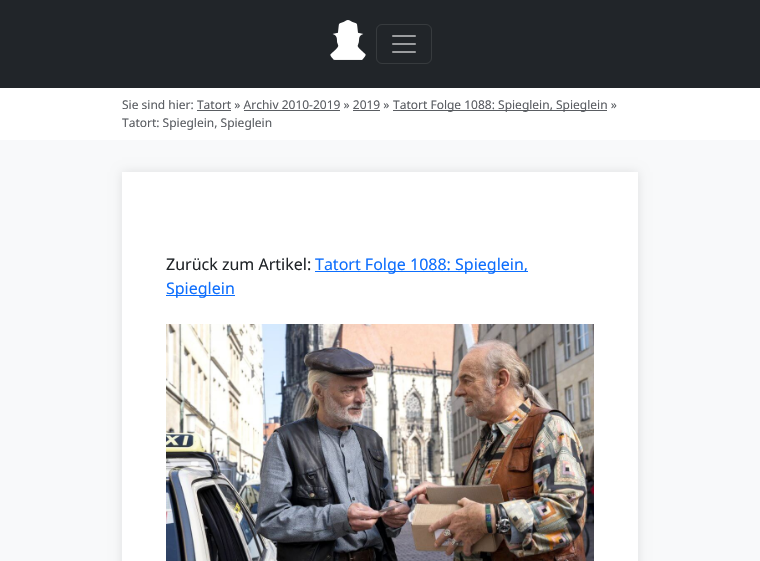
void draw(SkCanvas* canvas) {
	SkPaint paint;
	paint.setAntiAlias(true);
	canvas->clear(0xfff8f9fa);
	paint.setColor(0xff212529);
	canvas->drawRect(SkRect::MakeXYWH(0, 0, 760, 88), paint);
	canvas->drawImageRect(SkImages::DeferredFromEncodedData(SkData::MakeFromFileName("img1.png")), SkRect::MakeXYWH(330, 20, 36, 40), SkSamplingOptions());
	paint.setStroke(true);
	paint.setStrokeWidth(1);
	paint.setColor(0xff373b3e);
	canvas->drawRoundRect(SkRect::MakeXYWH(376.5, 24.5, 55, 39), 5.5, 5.5, paint);
	canvas->drawImageRect(SkImages::DeferredFromEncodedData(SkData::MakeFromFileName("img2.png")), SkRect::MakeXYWH(392, 35, 24, 18), SkSamplingOptions());
	paint.setStroke(false);
	paint.setColor(0xffffffff);
	canvas->drawRect(SkRect::MakeXYWH(0, 88, 760, 52), paint);
	SkFont f1(fontMgr->matchFamilyStyle("Noto Sans", SkFontStyle::Normal()), 12);
	f1.setSubpixel(true);
	paint.setColor(0xff5a5d62);
	canvas->drawString("Sie sind hier: Tatort » Archiv 2010-2019 » 2019 »", 122, 109, f1, paint);
	canvas->drawRect(SkRect::MakeXYWH(393, 110, 214, 1), paint);
	canvas->drawString("Tatort Folge 1088: Spieglein, Spieglein »", 393, 109, f1, paint);
	canvas->drawRect(SkRect::MakeXYWH(353, 110, 27, 1), paint);
	canvas->drawString("Tatort: Spieglein, Spieglein", 122, 127, f1, paint);
	canvas->drawRect(SkRect::MakeXYWH(197, 110, 34, 1), paint);
	canvas->drawRect(SkRect::MakeXYWH(244, 110, 96, 1), paint);
	paint.setColor(0x1a000000);
	paint.setMaskFilter(SkMaskFilter::MakeBlur(kNormal_SkBlurStyle, 5));
	canvas->drawRect(SkRect::MakeXYWH(122, 172, 516, 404), paint);
	paint.setMaskFilter(nullptr);
	paint.setColor(0xffffffff);
	canvas->drawRect(SkRect::MakeXYWH(122, 172, 516, 389), paint);
	SkFont f2(fontMgr->matchFamilyStyle("Noto Sans", SkFontStyle::Normal()), 16);
	f2.setSubpixel(true);
	paint.setColor(0xff212529);
	canvas->drawString("Zurück zum Artikel:", 166, 270, f2, paint);
	paint.setColor(0xff0d6efd);
	canvas->drawRect(SkRect::MakeXYWH(315, 271, 213, 1), paint);
	canvas->drawString("Tatort Folge 1088: Spieglein,", 315, 270, f2, paint);
	canvas->drawRect(SkRect::MakeXYWH(166, 295, 69, 1), paint);
	canvas->drawString("Spieglein", 166, 294, f2, paint);
	canvas->drawImageRect(SkImages::DeferredFromEncodedData(SkData::MakeFromFileName("img3.png")), SkRect::MakeXYWH(166, 324, 428, 237), SkSamplingOptions());
}
